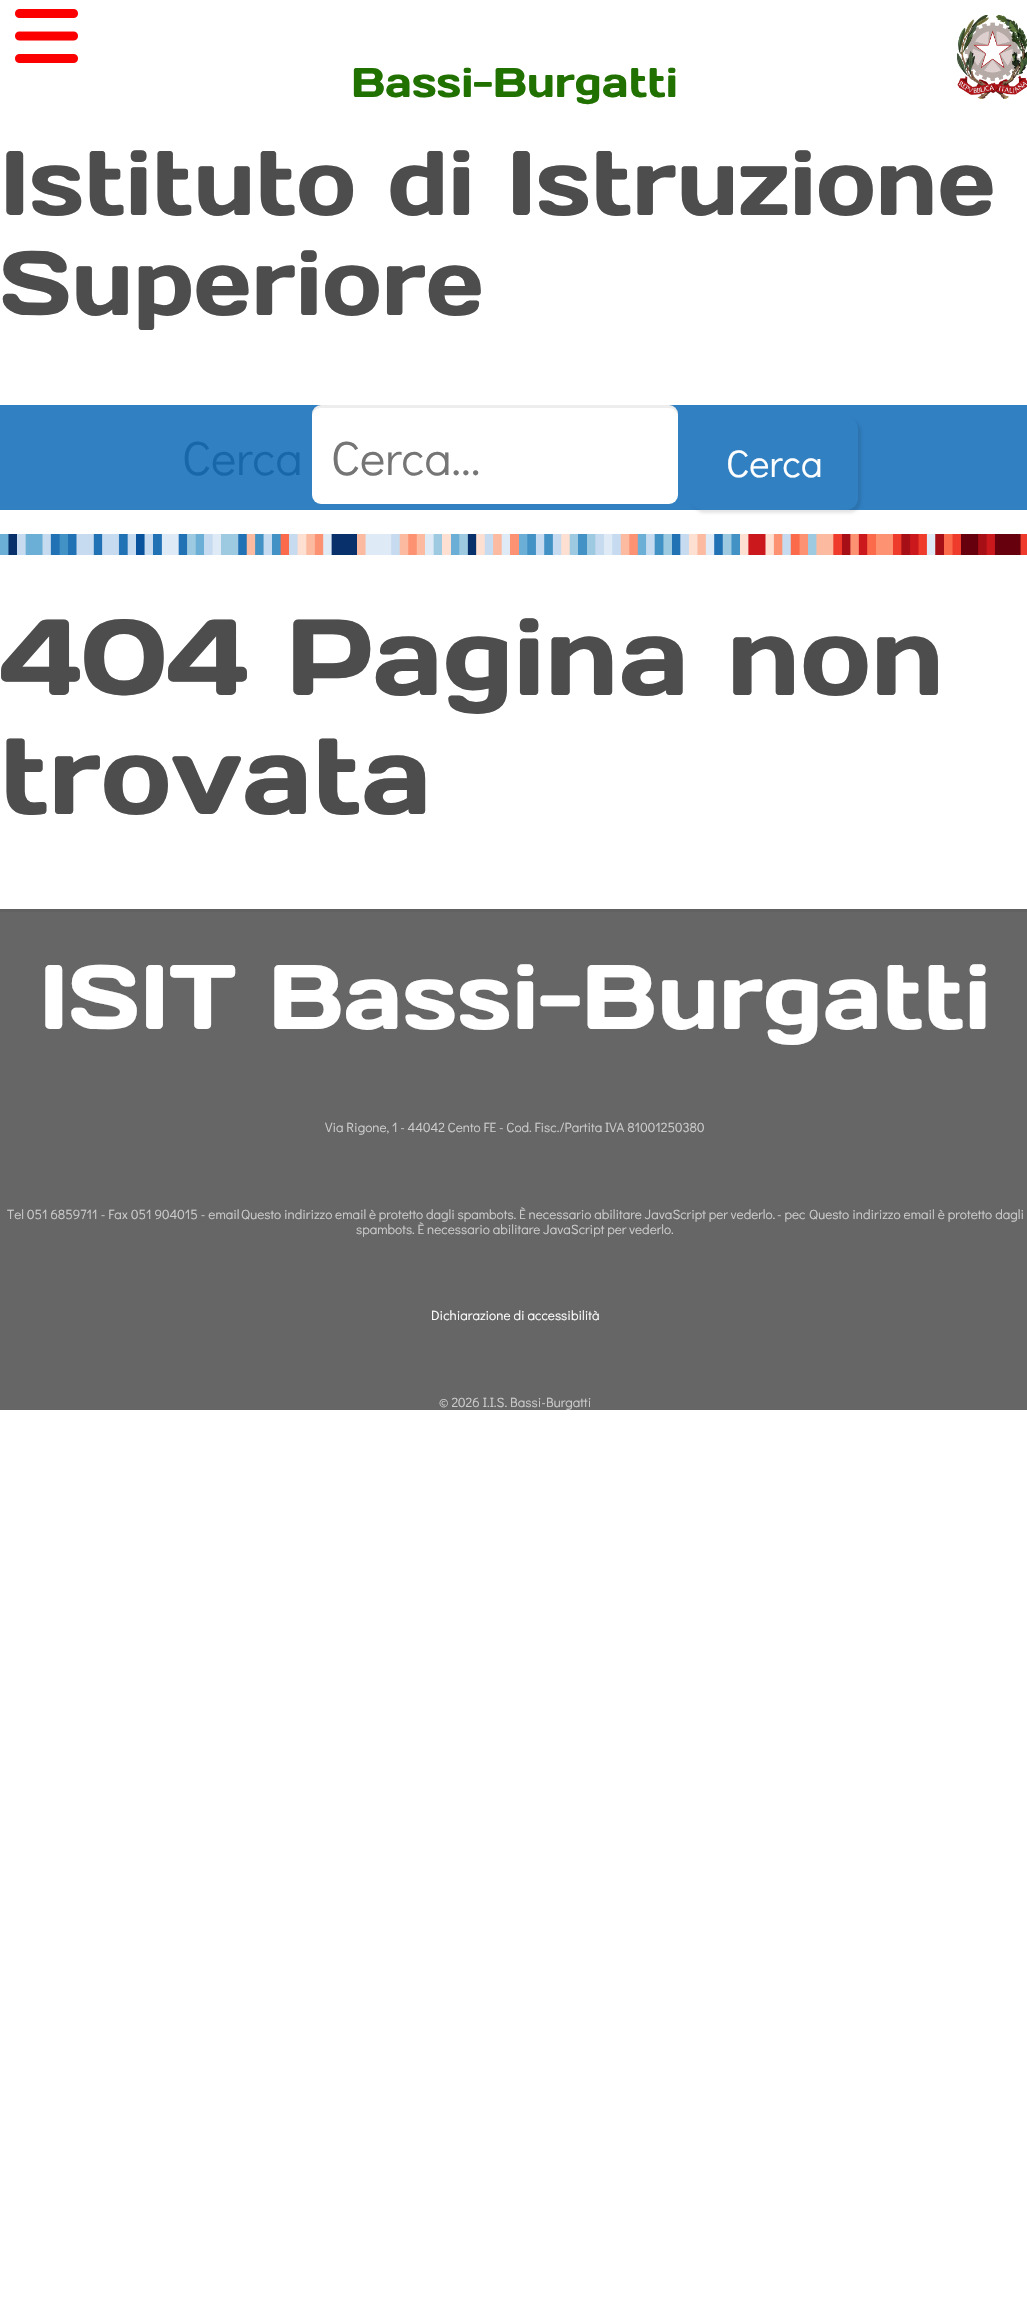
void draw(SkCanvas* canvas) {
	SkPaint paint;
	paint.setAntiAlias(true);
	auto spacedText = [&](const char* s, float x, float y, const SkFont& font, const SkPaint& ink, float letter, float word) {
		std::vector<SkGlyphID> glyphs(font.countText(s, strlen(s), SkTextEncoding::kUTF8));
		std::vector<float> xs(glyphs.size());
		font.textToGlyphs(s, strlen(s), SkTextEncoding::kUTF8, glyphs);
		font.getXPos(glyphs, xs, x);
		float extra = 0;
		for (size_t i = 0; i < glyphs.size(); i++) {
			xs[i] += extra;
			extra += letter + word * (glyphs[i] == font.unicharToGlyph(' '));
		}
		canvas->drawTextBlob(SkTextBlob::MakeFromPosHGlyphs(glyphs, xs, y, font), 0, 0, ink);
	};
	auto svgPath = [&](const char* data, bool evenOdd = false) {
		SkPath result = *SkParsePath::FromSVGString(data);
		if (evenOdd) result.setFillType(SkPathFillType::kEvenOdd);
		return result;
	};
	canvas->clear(0xffffffff);
	canvas->drawImageRect(SkImages::DeferredFromEncodedData(SkData::MakeFromFileName("img1.png")), SkRect::MakeXYWH(15, 9, 63, 54), SkSamplingOptions());
	canvas->drawImageRect(SkImages::DeferredFromEncodedData(SkData::MakeFromFileName("img2.png")), SkRect::MakeXYWH(957, 15, 70, 84), SkSamplingOptions());
	SkFont f1(fontMgr->matchFamilyStyle("Days One", SkFontStyle::Normal()), 41.25);
	f1.setSubpixel(true);
	paint.setColor(0xff207100);
	canvas->drawString("Bassi-Burgatti", 351, 97, f1, paint);
	SkFont f2(fontMgr->matchFamilyStyle("Days One", SkFontStyle::Normal()), 91.25);
	f2.setSubpixel(true);
	paint.setColor(0xff4d4d4d);
	canvas->drawString("Istituto di Istruzione", 0, 215, f2, paint);
	canvas->drawString("Superiore", 0, 315, f2, paint);
	paint.setColor(0xff3180c2);
	canvas->drawRect(SkRect::MakeXYWH(0, 405, 1027, 105), paint);
	SkFont f3(fontMgr->matchFamilyStyle("Didact Gothic", SkFontStyle::Normal()), 48);
	f3.setSubpixel(true);
	paint.setColor(0xff1867a9);
	canvas->drawString("Cerca", 182, 475, f3, paint);
	paint.setColor(0xffffffff);
	canvas->drawRoundRect(SkRect::MakeXYWH(312, 405, 366, 99), 9, 9, paint);
	paint.setColor(0x12000000);
	canvas->drawPath(svgPath("M321 408H669C674 408 678 412 678 417V414C678 409 674 405 669 405H321C316 405 312 409 312 414V417C312 412 316 408 321 408Z"), paint);
	paint.setColor(0xff757575);
	canvas->drawString("Cerca...", 331, 475, f3, paint);
	canvas->save();
	canvas->clipPath(svgPath("M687 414H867V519H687ZM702 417H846C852.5 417 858 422.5 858 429V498C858 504.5 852.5 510 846 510H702C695.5 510 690 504.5 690 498V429C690 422.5 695.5 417 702 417Z", true), true);
	paint.setColor(0x1a000000);
	paint.setMaskFilter(SkMaskFilter::MakeBlur(kNormal_SkBlurStyle, 1.5));
	canvas->drawRoundRect(SkRect::MakeXYWH(693, 420, 168, 93), 12, 12, paint);
	paint.setMaskFilter(nullptr);
	canvas->restore();
	SkFont f4(fontMgr->matchFamilyStyle("Didact Gothic", SkFontStyle::Normal()), 38.5);
	f4.setSubpixel(true);
	paint.setColor(0xffffffff);
	canvas->drawString("Cerca", 726, 477, f4, paint);
	canvas->drawImageRect(SkImages::DeferredFromEncodedData(SkData::MakeFromFileName("img3.png")), SkRect::MakeXYWH(0, 534, 1027, 21), SkSamplingOptions());
	SkFont f5(fontMgr->matchFamilyStyle("Days One", SkFontStyle::Normal()), 108);
	f5.setSubpixel(true);
	paint.setColor(0xff4d4d4d);
	canvas->drawString("404 Pagina non", 0, 695, f5, paint);
	canvas->drawString("trovata", 0, 814, f5, paint);
	paint.setColor(0xff666666);
	canvas->drawRect(SkRect::MakeXYWH(0, 912, 1027, 498), paint);
	paint.setColor(0xff616161);
	canvas->drawRect(SkRect::MakeXYWH(0, 909, 1027, 3), paint);
	paint.setColor(0xffffffff);
	canvas->drawString("ISIT Bassi-Burgatti", 39, 1029, f2, paint);
	SkFont f6(fontMgr->matchFamilyStyle("Didact Gothic", SkFontStyle::Normal()), 13.4);
	f6.setSubpixel(true);
	paint.setColor(0xffcccccc);
	spacedText("Via Rigone, 1 - 44042 Cento FE - Cod. Fisc./Partita IVA 81001250380", 325, 1132, f6, paint, 0, -0.25);
	canvas->drawString("Tel 051 6859711 - Fax 051 904015 - email", 7, 1219, f6, paint);
	spacedText("Questo indirizzo email è protetto dagli spambots. È necessario abilitare JavaScript per vederlo.", 241, 1219, f6, paint, 0, -0.25);
	canvas->drawString("- pec", 777, 1219, f6, paint);
	canvas->drawString("Questo indirizzo email è protetto dagli", 809, 1219, f6, paint);
	spacedText("spambots. È necessario abilitare JavaScript per vederlo.", 356, 1234, f6, paint, 0, -0.25);
	paint.setColor(0xffffffff);
	canvas->drawString("Dichiarazione di accessibilità", 431, 1320, f6, paint);
	paint.setColor(0xffcccccc);
	canvas->drawString("© 2026 I.I.S. Bassi-Burgatti", 439, 1407, f6, paint);
}
